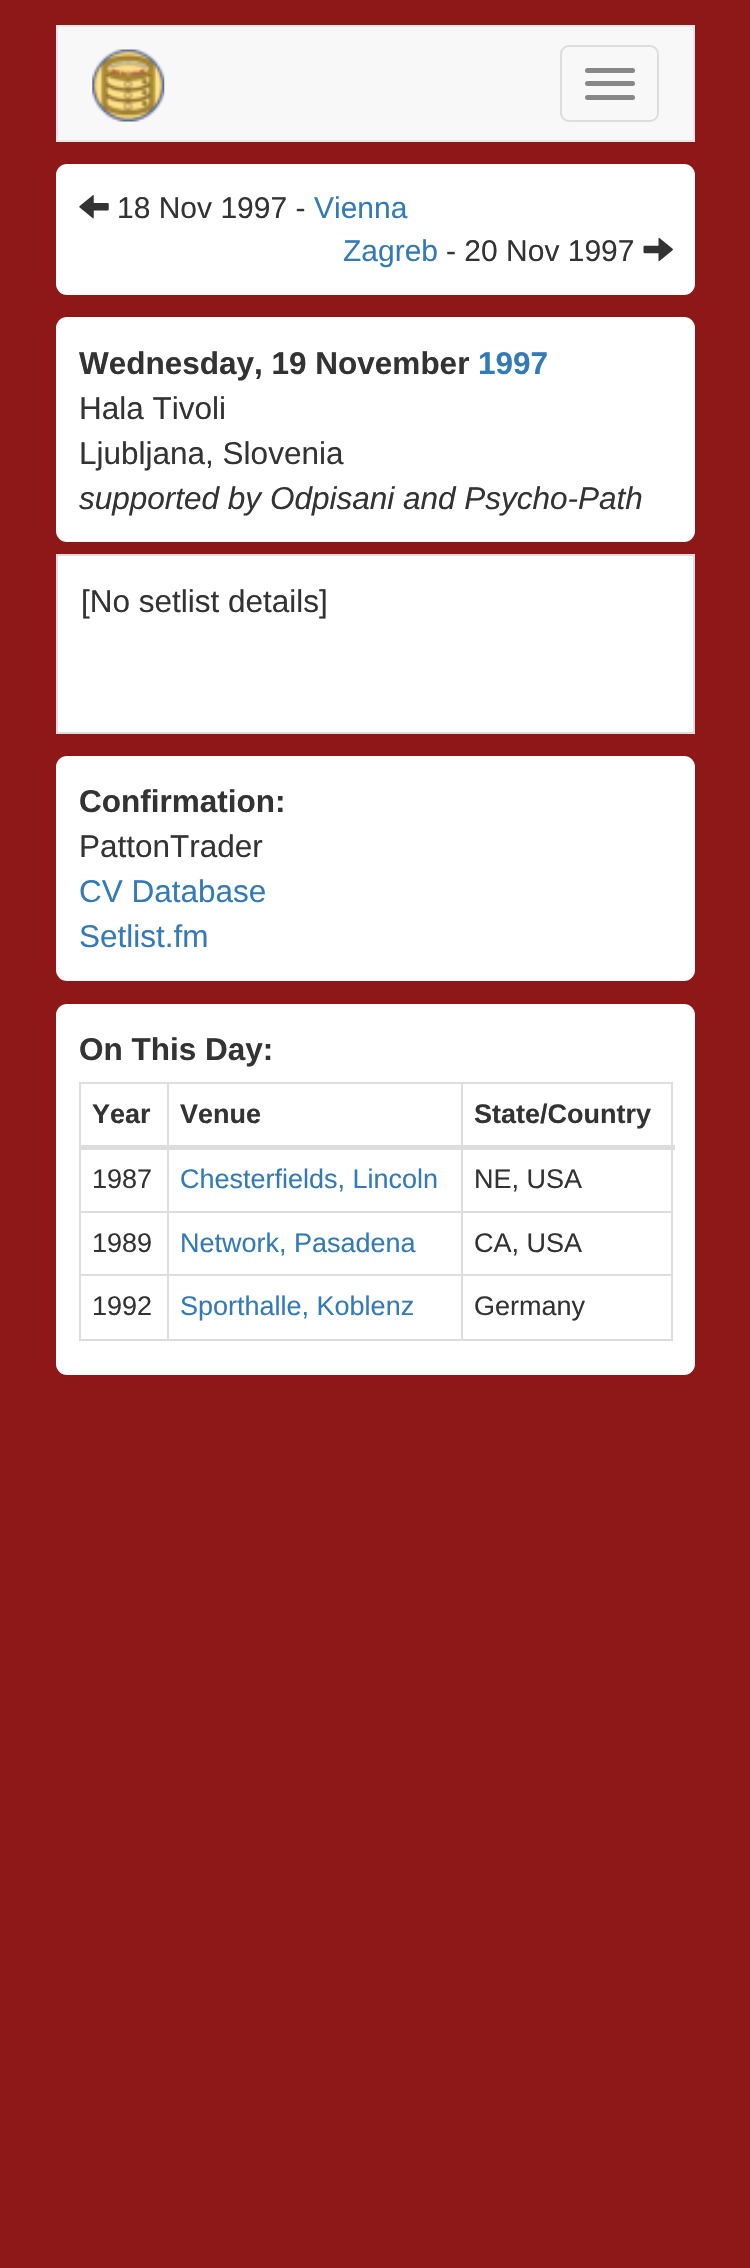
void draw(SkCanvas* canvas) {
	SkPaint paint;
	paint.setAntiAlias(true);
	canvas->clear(0xff8e1717);
	paint.setColor(0xfff8f8f8);
	canvas->drawRect(SkRect::MakeXYWH(57, 26, 637, 115), paint);
	paint.setStroke(true);
	paint.setStrokeWidth(2);
	paint.setColor(0xffe7e7e7);
	canvas->drawRect(SkRect::MakeXYWH(57, 26, 637, 115), paint);
	canvas->drawImageRect(SkImages::DeferredFromEncodedData(SkData::MakeFromFileName("img1.png")), SkRect::MakeXYWH(92, 49, 73, 73), SkSamplingOptions());
	paint.setColor(0xffdddddd);
	canvas->drawRoundRect(SkRect::MakeXYWH(561, 46, 97, 75), 8, 8, paint);
	paint.setStroke(false);
	paint.setColor(0xff888888);
	canvas->drawRoundRect(SkRect::MakeXYWH(585, 68, 50, 5), 2.5, 2.5, paint);
	canvas->drawRoundRect(SkRect::MakeXYWH(585, 81, 50, 5), 2.5, 2.5, paint);
	canvas->drawRoundRect(SkRect::MakeXYWH(585, 95, 50, 5), 2.5, 2.5, paint);
	paint.setColor(0xffffffff);
	canvas->drawRoundRect(SkRect::MakeXYWH(56, 164, 639, 131), 11, 11, paint);
	canvas->drawImageRect(SkImages::DeferredFromEncodedData(SkData::MakeFromFileName("img2.png")), SkRect::MakeXYWH(79, 195, 30, 24), SkSamplingOptions());
	SkFont f1(fontMgr->matchFamilyStyle("Liberation Sans", SkFontStyle::Normal()), 30);
	f1.setSubpixel(true);
	paint.setColor(0xff333333);
	canvas->drawString("18 Nov 1997 -", 117, 218, f1, paint);
	paint.setColor(0xff337ab7);
	canvas->drawString("Vienna", 314, 218, f1, paint);
	canvas->drawString("Zagreb", 343, 261, f1, paint);
	paint.setColor(0xff333333);
	canvas->drawString("- 20 Nov 1997", 446, 261, f1, paint);
	canvas->drawImageRect(SkImages::DeferredFromEncodedData(SkData::MakeFromFileName("img3.png")), SkRect::MakeXYWH(643, 237, 30, 25), SkSamplingOptions());
	paint.setColor(0xffffffff);
	canvas->drawRoundRect(SkRect::MakeXYWH(56, 317, 639, 225), 11, 11, paint);
	SkFont f2(fontMgr->matchFamilyStyle("Liberation Sans", SkFontStyle::Bold()), 31.5);
	f2.setSubpixel(true);
	paint.setColor(0xff333333);
	canvas->drawString("Wednesday, 19 November", 79, 374, f2, paint);
	paint.setColor(0xff337ab7);
	canvas->drawString("1997", 478, 374, f2, paint);
	SkFont f3(fontMgr->matchFamilyStyle("Liberation Sans", SkFontStyle::Normal()), 31.5);
	f3.setSubpixel(true);
	paint.setColor(0xff333333);
	canvas->drawString("Hala Tivoli", 79, 419, f3, paint);
	canvas->drawString("Ljubljana, Slovenia", 79, 464, f3, paint);
	SkFont f4(fontMgr->matchFamilyStyle("Liberation Sans", SkFontStyle::Italic()), 31.5);
	f4.setSubpixel(true);
	canvas->drawString("supported by Odpisani and Psycho-Path", 79, 509, f4, paint);
	paint.setColor(0xffffffff);
	canvas->drawRect(SkRect::MakeXYWH(57, 555, 637, 178), paint);
	paint.setStroke(true);
	paint.setColor(0xffdddddd);
	canvas->drawRect(SkRect::MakeXYWH(57, 555, 637, 178), paint);
	paint.setStroke(false);
	paint.setColor(0xff333333);
	canvas->drawString("[No setlist details]", 81, 612, f3, paint);
	paint.setColor(0xffffffff);
	canvas->drawRoundRect(SkRect::MakeXYWH(56, 756, 639, 225), 11, 11, paint);
	paint.setColor(0xff333333);
	canvas->drawString("Confirmation:", 79, 812, f2, paint);
	canvas->drawString("PattonTrader", 79, 857, f3, paint);
	paint.setColor(0xff337ab7);
	canvas->drawString("CV Database", 79, 902, f3, paint);
	canvas->drawString("Setlist.fm", 79, 947, f3, paint);
	paint.setColor(0xffffffff);
	canvas->drawRoundRect(SkRect::MakeXYWH(56, 1004, 639, 371), 11, 11, paint);
	paint.setColor(0xff333333);
	canvas->drawString("On This Day:", 79, 1060, f2, paint);
	paint.setColor(0xffdddddd);
	canvas->drawRect(SkRect::MakeXYWH(79, 1082, 594, 2), paint);
	canvas->drawRect(SkRect::MakeXYWH(671, 1082, 2, 259), paint);
	canvas->drawRect(SkRect::MakeXYWH(79, 1339, 594, 2), paint);
	canvas->drawRect(SkRect::MakeXYWH(79, 1082, 2, 259), paint);
	SkFont f5(fontMgr->matchFamilyStyle("Liberation Sans", SkFontStyle::Bold()), 27);
	f5.setSubpixel(true);
	paint.setColor(0xff333333);
	canvas->drawString("Year", 92, 1123, f5, paint);
	canvas->drawString("Venue", 180, 1123, f5, paint);
	paint.setColor(0xffdddddd);
	canvas->drawRect(SkRect::MakeXYWH(461, 1211, 212, 2), paint);
	canvas->drawRect(SkRect::MakeXYWH(461, 1274, 212, 2), paint);
	canvas->drawRect(SkRect::MakeXYWH(461, 1274, 2, 67), paint);
	canvas->drawRect(SkRect::MakeXYWH(167, 1274, 297, 2), paint);
	canvas->drawRect(SkRect::MakeXYWH(461, 1211, 2, 65), paint);
	canvas->drawRect(SkRect::MakeXYWH(167, 1211, 297, 2), paint);
	canvas->drawRect(SkRect::MakeXYWH(167, 1274, 2, 67), paint);
	canvas->drawRect(SkRect::MakeXYWH(79, 1274, 90, 2), paint);
	canvas->drawRect(SkRect::MakeXYWH(167, 1211, 2, 65), paint);
	canvas->drawRect(SkRect::MakeXYWH(79, 1211, 90, 2), paint);
	canvas->drawRect(SkRect::MakeXYWH(167, 1082, 2, 131), paint);
	canvas->drawRect(SkRect::MakeXYWH(461, 1082, 2, 131), paint);
	canvas->drawRect(SkRect::MakeXYWH(79, 1145, 596, 5), paint);
	paint.setColor(0xff333333);
	canvas->drawString("State/Country", 474, 1123, f5, paint);
	SkFont f6(fontMgr->matchFamilyStyle("Liberation Sans", SkFontStyle::Normal()), 27);
	f6.setSubpixel(true);
	canvas->drawString("1987", 92, 1188, f6, paint);
	paint.setColor(0xff337ab7);
	canvas->drawString("Chesterfields, Lincoln", 180, 1188, f6, paint);
	paint.setColor(0xff333333);
	canvas->drawString("NE, USA", 474, 1188, f6, paint);
	canvas->drawString("1989", 92, 1252, f6, paint);
	paint.setColor(0xff337ab7);
	canvas->drawString("Network, Pasadena", 180, 1252, f6, paint);
	paint.setColor(0xff333333);
	canvas->drawString("CA, USA", 474, 1252, f6, paint);
	canvas->drawString("1992", 92, 1315, f6, paint);
	paint.setColor(0xff337ab7);
	canvas->drawString("Sporthalle, Koblenz", 180, 1315, f6, paint);
	paint.setColor(0xff333333);
	canvas->drawString("Germany", 474, 1315, f6, paint);
}
